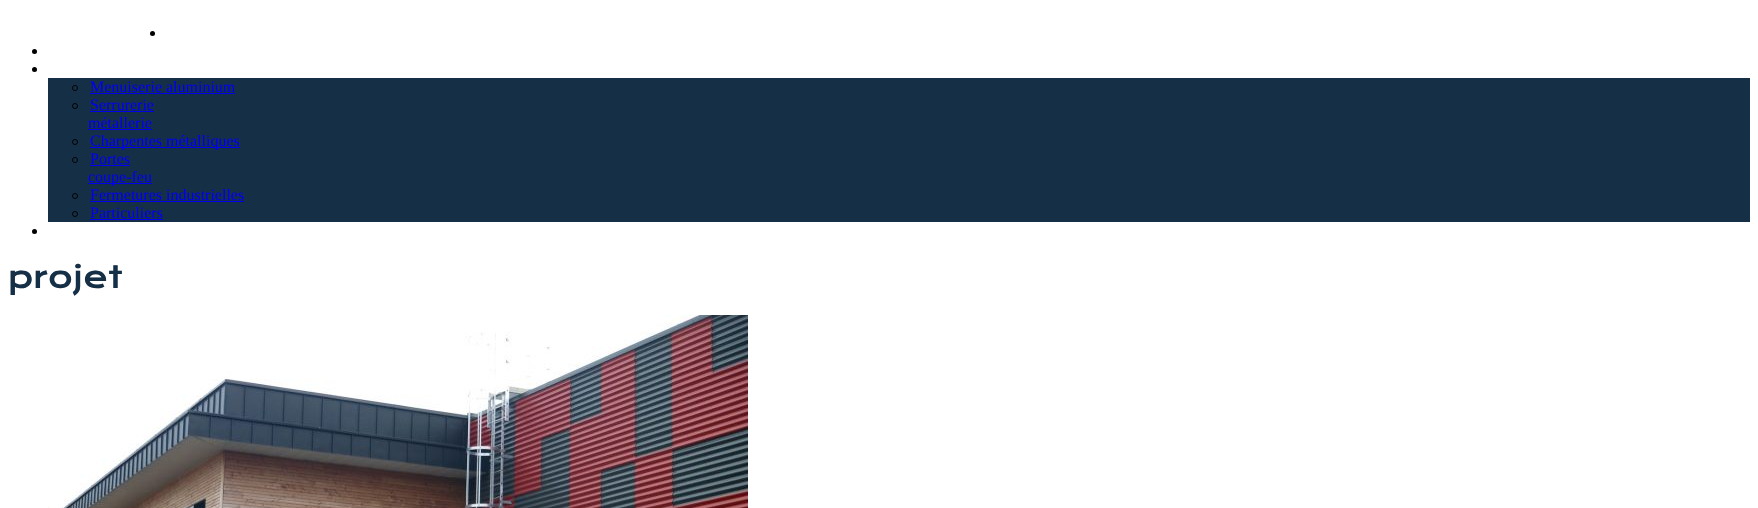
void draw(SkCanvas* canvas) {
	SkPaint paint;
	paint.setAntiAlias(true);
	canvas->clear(0xffffffff);
	paint.setColor(0xff000000);
	canvas->drawCircle(152.5, 33.5, 2.5, paint);
	canvas->drawCircle(34.5, 51.5, 2.5, paint);
	canvas->drawCircle(34.5, 69.5, 2.5, paint);
	paint.setColor(0xff153046);
	canvas->drawRect(SkRect::MakeXYWH(48, 78, 1702, 144), paint);
	paint.setStroke(true);
	paint.setStrokeWidth(1);
	paint.setColor(0xff000000);
	canvas->drawCircle(75, 88, 2.5, paint);
	SkFont f1(fontMgr->matchFamilyStyle("Liberation Serif", SkFontStyle::Normal()), 16);
	f1.setSubpixel(true);
	paint.setStroke(false);
	paint.setColor(0xff0000ee);
	canvas->drawString("Menuiserie aluminium", 90, 92, f1, paint);
	canvas->drawRect(SkRect::MakeXYWH(90, 93, 145, 1), paint);
	paint.setStroke(true);
	paint.setColor(0xff000000);
	canvas->drawCircle(75, 106, 2.5, paint);
	paint.setStroke(false);
	paint.setColor(0xff0000ee);
	canvas->drawString("Serrurerie", 90, 110, f1, paint);
	canvas->drawRect(SkRect::MakeXYWH(90, 111, 64, 1), paint);
	canvas->drawString("métallerie", 88, 128, f1, paint);
	canvas->drawRect(SkRect::MakeXYWH(88, 129, 64, 1), paint);
	paint.setStroke(true);
	paint.setColor(0xff000000);
	canvas->drawCircle(75, 142, 2.5, paint);
	paint.setStroke(false);
	paint.setColor(0xff0000ee);
	canvas->drawRect(SkRect::MakeXYWH(90, 147, 150, 1), paint);
	canvas->drawString("Charpentes métalliques", 90, 146, f1, paint);
	paint.setStroke(true);
	paint.setColor(0xff000000);
	canvas->drawCircle(75, 160, 2.5, paint);
	paint.setStroke(false);
	paint.setColor(0xff0000ee);
	canvas->drawString("Portes", 90, 164, f1, paint);
	canvas->drawRect(SkRect::MakeXYWH(90, 165, 40, 1), paint);
	canvas->drawRect(SkRect::MakeXYWH(88, 183, 64, 1), paint);
	canvas->drawString("coupe-feu", 88, 182, f1, paint);
	paint.setStroke(true);
	paint.setColor(0xff000000);
	canvas->drawCircle(75, 196, 2.5, paint);
	paint.setStroke(false);
	paint.setColor(0xff0000ee);
	canvas->drawString("Fermetures industrielles", 90, 200, f1, paint);
	canvas->drawRect(SkRect::MakeXYWH(90, 201, 154, 1), paint);
	paint.setStroke(true);
	paint.setColor(0xff000000);
	canvas->drawCircle(75, 214, 2.5, paint);
	paint.setStroke(false);
	paint.setColor(0xff0000ee);
	canvas->drawString("Particuliers", 90, 218, f1, paint);
	canvas->drawRect(SkRect::MakeXYWH(90, 219, 73, 1), paint);
	paint.setColor(0xff000000);
	canvas->drawCircle(34.5, 231.5, 2.5, paint);
	SkFont f2(fontMgr->matchFamilyStyle("Krona One", SkFontStyle::Normal()), 30);
	f2.setSubpixel(true);
	paint.setColor(0xff153046);
	canvas->drawString("projet", 8, 288, f2, paint);
	canvas->drawImageRect(SkImages::DeferredFromEncodedData(SkData::MakeFromFileName("img1.png")), SkRect::MakeXYWH(48, 315, 700, 193), SkSamplingOptions());
}
